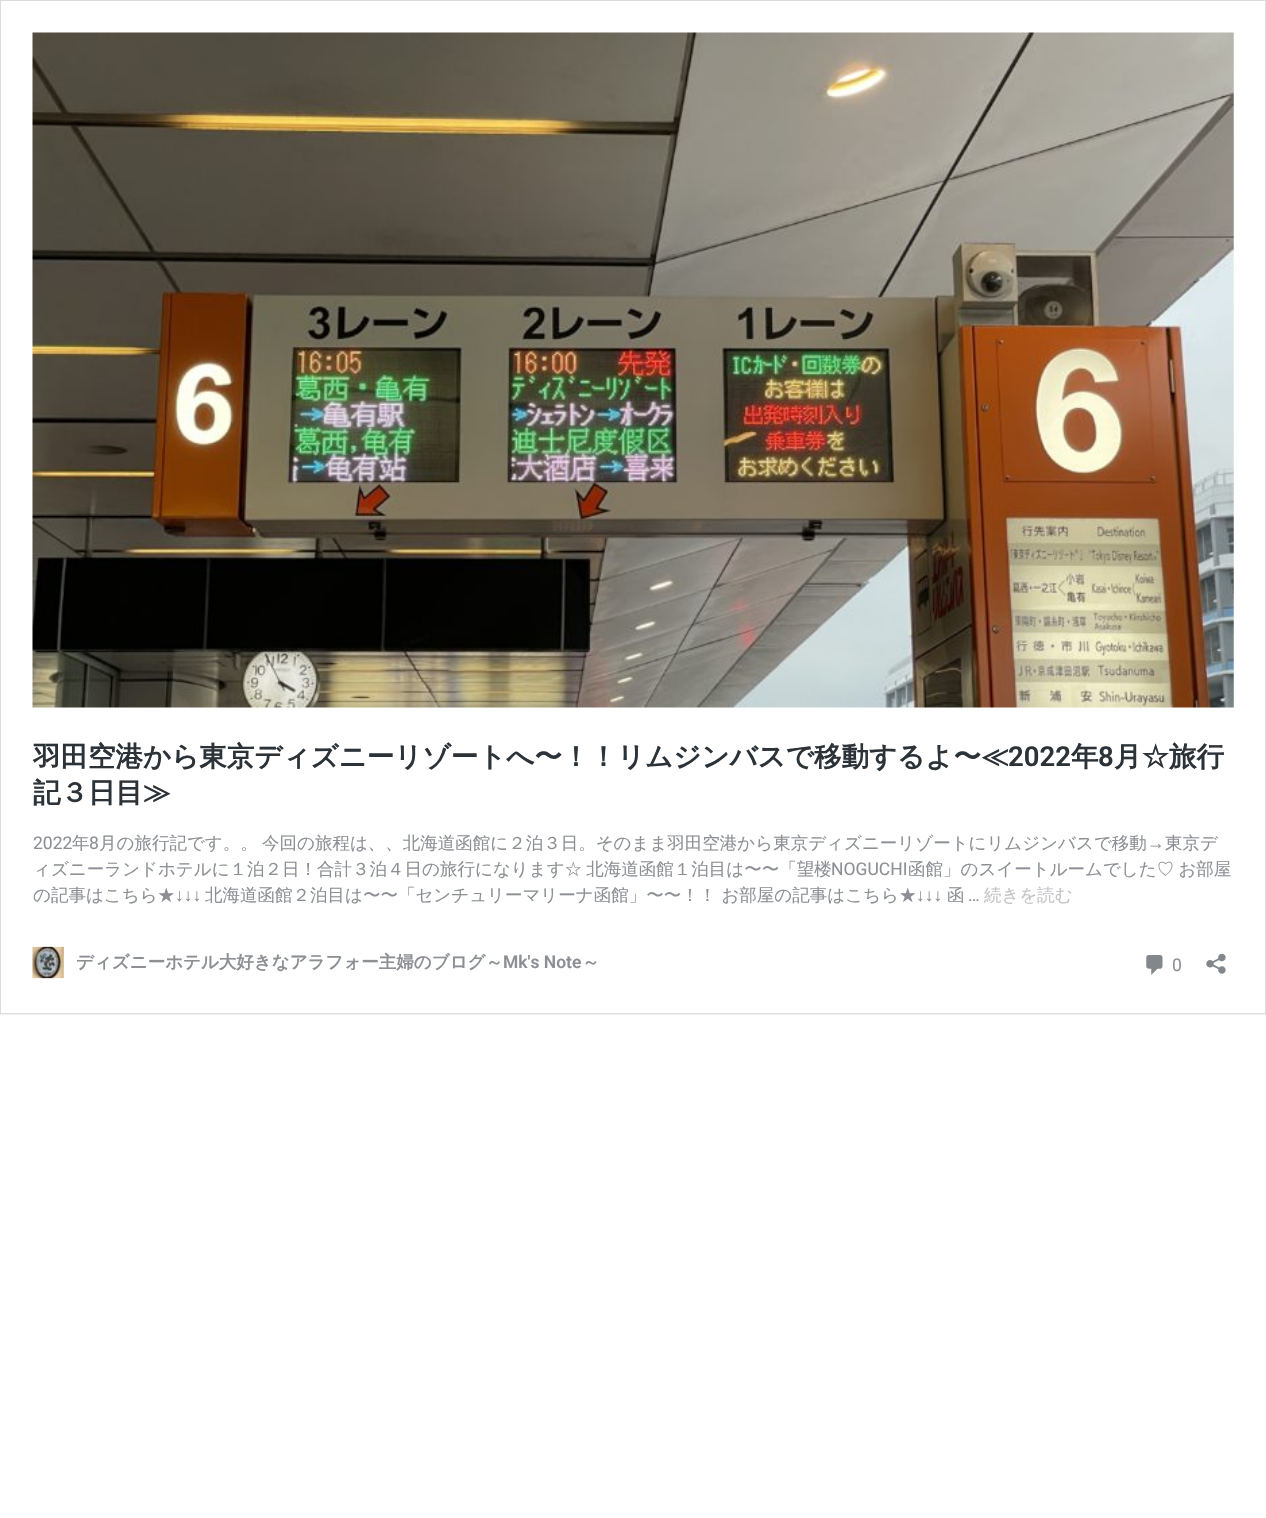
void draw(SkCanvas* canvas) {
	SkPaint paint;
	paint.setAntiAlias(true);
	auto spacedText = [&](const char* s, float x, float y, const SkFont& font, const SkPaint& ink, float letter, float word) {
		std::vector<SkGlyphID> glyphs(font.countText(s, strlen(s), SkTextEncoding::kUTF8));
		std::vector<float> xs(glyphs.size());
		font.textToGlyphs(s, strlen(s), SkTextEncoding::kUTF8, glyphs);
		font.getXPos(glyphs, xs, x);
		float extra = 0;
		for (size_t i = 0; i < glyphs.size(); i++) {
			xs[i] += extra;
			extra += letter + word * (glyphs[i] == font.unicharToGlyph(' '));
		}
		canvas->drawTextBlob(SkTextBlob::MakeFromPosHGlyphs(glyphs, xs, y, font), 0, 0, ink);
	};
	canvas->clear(0xffffffff);
	paint.setColor(0x0d000000);
	paint.setMaskFilter(SkMaskFilter::MakeBlur(kNormal_SkBlurStyle, 0.5));
	canvas->drawRect(SkRect::MakeXYWH(0, 1, 1266, 1014), paint);
	paint.setMaskFilter(nullptr);
	paint.setColor(0xffffffff);
	canvas->drawRect(SkRect::MakeXYWH(0.5, 0.5, 1265, 1013), paint);
	paint.setStroke(true);
	paint.setStrokeWidth(1);
	paint.setColor(0xffdcdcde);
	canvas->drawRect(SkRect::MakeXYWH(0.5, 0.5, 1265, 1013), paint);
	canvas->drawImageRect(SkImages::DeferredFromEncodedData(SkData::MakeFromFileName("img1.png")), SkRect::MakeXYWH(32, 32, 1202, 676), SkSamplingOptions());
	SkFont f1(fontMgr->matchFamilyStyle("WenQuanYi Zen Hei", SkFontStyle::Bold()), 27.5);
	f1.setSubpixel(true);
	paint.setStroke(false);
	paint.setColor(0xff2c3338);
	canvas->drawString("羽田空港から東京ディズニーリゾートへ〜！！リムジンバスで移動するよ〜≪", 33, 766, f1, paint);
	SkFont f2(fontMgr->matchFamilyStyle("Roboto", SkFontStyle(600, SkFontStyle::kNormal_Width, SkFontStyle::kUpright_Slant)), 27.5);
	f2.setSubpixel(true);
	canvas->drawString("2022", 1008, 766, f2, paint);
	canvas->drawString("年", 1071, 766, f1, paint);
	canvas->drawString("8", 1098, 766, f2, paint);
	canvas->drawString("月☆旅行", 1114, 766, f1, paint);
	canvas->drawString("記３日目≫", 33, 802, f1, paint);
	SkFont f3(fontMgr->matchFamilyStyle("Roboto", SkFontStyle::Normal()), 17.5);
	f3.setSubpixel(true);
	paint.setColor(0xff8c8f94);
	canvas->drawString("2022", 33, 849, f3, paint);
	SkFont f4(fontMgr->matchFamilyStyle("WenQuanYi Zen Hei", SkFontStyle(500, SkFontStyle::kNormal_Width, SkFontStyle::kUpright_Slant)), 17.5);
	f4.setSubpixel(true);
	canvas->drawString("年", 72, 849, f4, paint);
	canvas->drawString("8", 89, 849, f3, paint);
	spacedText("月の旅行記です。。 今回の旅程は、、北海道函館に２泊３日。そのまま羽田空港から東京ディズニーリゾートにリムジンバスで移動", 99, 849, f4, paint, 0, -1);
	SkFont f5(fontMgr->matchFamilyStyle("Liberation Sans", SkFontStyle::Normal()), 17.5);
	f5.setSubpixel(true);
	canvas->drawString("→", 1147, 849, f5, paint);
	canvas->drawString("東京デ", 1165, 849, f4, paint);
	spacedText("ィズニーランドホテルに１泊２日！合計３泊４日の旅行になります☆ 北海道函館１泊目は〜〜「望楼", 33, 875, f4, paint, 0, -1);
	canvas->drawString("NOGUCHI", 831, 875, f3, paint);
	spacedText("函館」のスイートルームでした♡ お部屋", 908, 875, f4, paint, 0, -1);
	canvas->drawString("の記事はこちら★", 33, 901, f4, paint);
	canvas->drawString("↓↓↓", 175, 901, f5, paint);
	canvas->drawString("北海道函館２泊目は〜〜「センチュリーマリーナ函館」〜〜！！ お部屋の記事はこちら★", 205, 901, f4, paint);
	canvas->drawString("↓↓↓", 916, 901, f5, paint);
	canvas->drawString("函", 947, 901, f4, paint);
	canvas->drawString("…", 968, 901, f3, paint);
	paint.setColor(0xffc3c4c7);
	canvas->drawString("続きを読む", 984, 901, f4, paint);
	canvas->drawImageRect(SkImages::DeferredFromEncodedData(SkData::MakeFromFileName("img2.png")), SkRect::MakeXYWH(32, 946, 32, 33), SkSamplingOptions());
	SkFont f6(fontMgr->matchFamilyStyle("WenQuanYi Zen Hei", SkFontStyle::Bold()), 17.5);
	f6.setSubpixel(true);
	paint.setColor(0xff8c8f94);
	canvas->drawString("ディズニーホテル大好きなアラフォー主婦のブログ～", 76, 968, f6, paint);
	SkFont f7(fontMgr->matchFamilyStyle("Roboto", SkFontStyle(600, SkFontStyle::kNormal_Width, SkFontStyle::kUpright_Slant)), 17.5);
	f7.setSubpixel(true);
	canvas->drawString("Mk's Note", 503, 968, f7, paint);
	canvas->drawString("～", 582, 968, f6, paint);
	canvas->drawImageRect(SkImages::DeferredFromEncodedData(SkData::MakeFromFileName("img3.png")), SkRect::MakeXYWH(1146, 955, 17, 20), SkSamplingOptions());
	canvas->drawString("0", 1172, 971, f3, paint);
	canvas->drawImageRect(SkImages::DeferredFromEncodedData(SkData::MakeFromFileName("img4.png")), SkRect::MakeXYWH(1206, 953, 20, 21), SkSamplingOptions());
}
